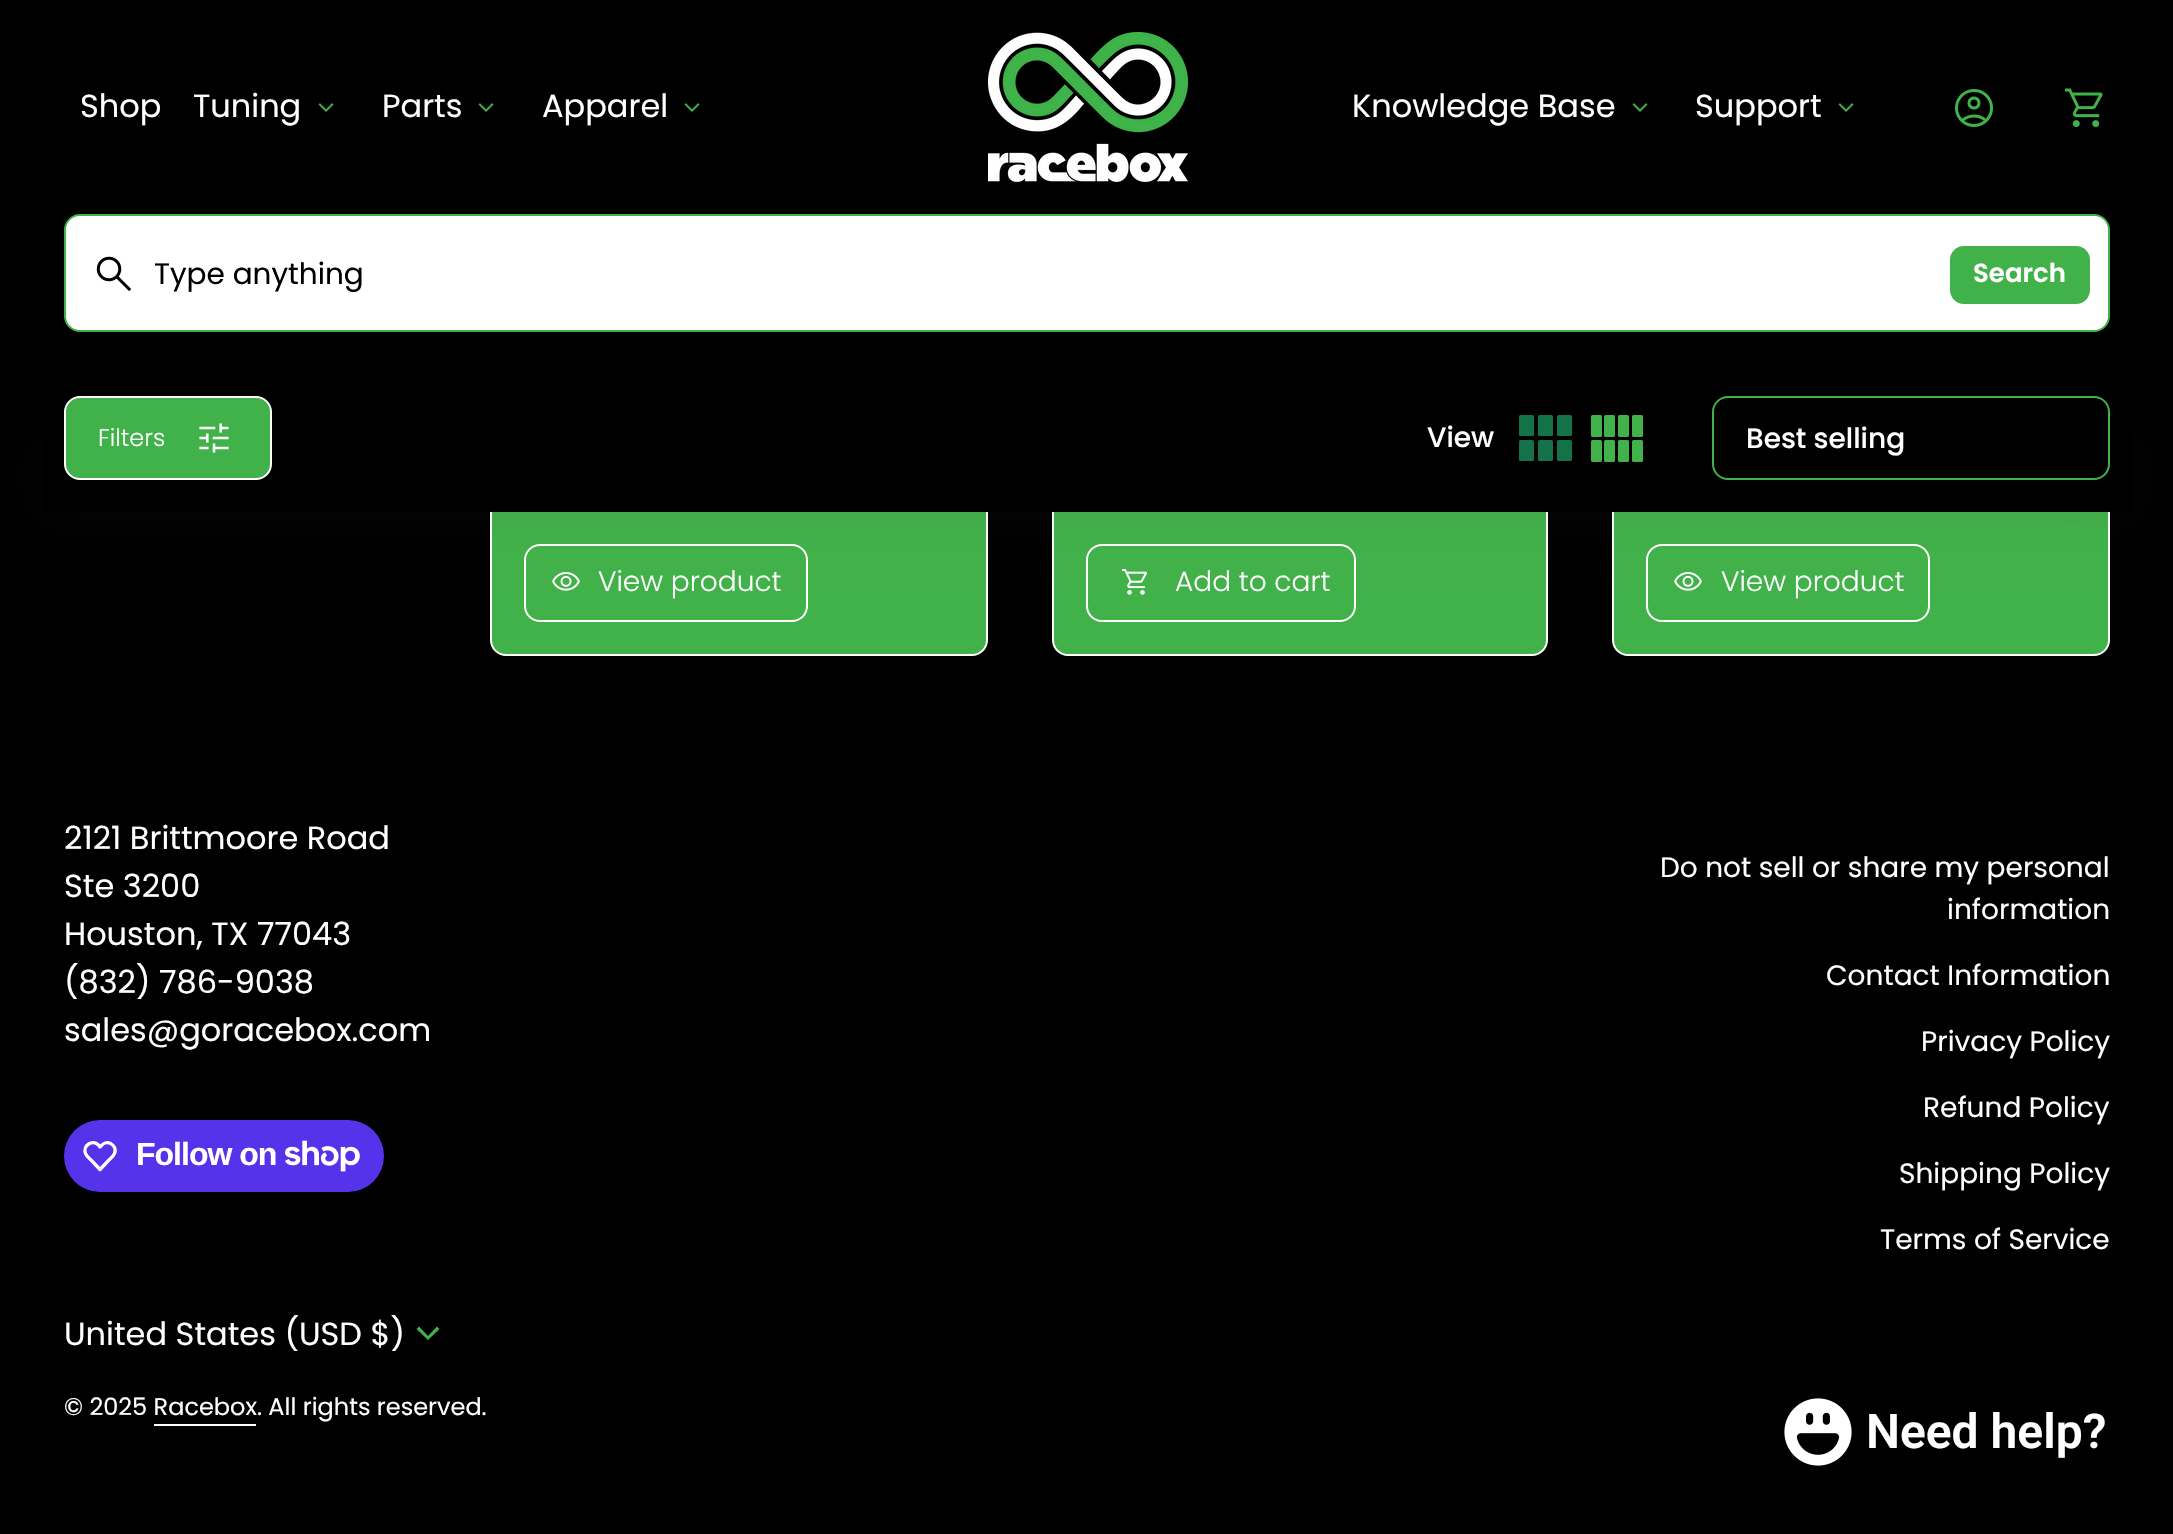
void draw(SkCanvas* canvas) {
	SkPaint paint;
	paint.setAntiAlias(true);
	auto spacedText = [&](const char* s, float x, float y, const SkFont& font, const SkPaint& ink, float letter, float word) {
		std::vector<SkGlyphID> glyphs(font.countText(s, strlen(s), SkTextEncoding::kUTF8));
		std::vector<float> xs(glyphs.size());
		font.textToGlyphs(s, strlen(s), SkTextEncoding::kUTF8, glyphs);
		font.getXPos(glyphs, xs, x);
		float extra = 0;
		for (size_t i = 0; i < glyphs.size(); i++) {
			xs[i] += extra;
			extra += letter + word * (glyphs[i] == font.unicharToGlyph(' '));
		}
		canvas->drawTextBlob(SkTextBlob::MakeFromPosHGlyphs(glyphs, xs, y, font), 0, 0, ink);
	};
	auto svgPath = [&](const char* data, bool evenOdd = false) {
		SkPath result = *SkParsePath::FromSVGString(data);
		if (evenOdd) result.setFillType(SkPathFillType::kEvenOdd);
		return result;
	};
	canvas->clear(0xff000000);
	paint.setColor(0xff41b149);
	canvas->drawRoundRect(SkRect::MakeXYWH(491, -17, 496, 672), 15, 15, paint);
	paint.setStroke(true);
	paint.setStrokeWidth(2);
	paint.setColor(0xffffffff);
	canvas->drawRoundRect(SkRect::MakeXYWH(491, -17, 496, 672), 15, 15, paint);
	canvas->drawRoundRect(SkRect::MakeXYWH(525, 545, 282, 76), 15, 15, paint);
	canvas->drawImageRect(SkImages::DeferredFromEncodedData(SkData::MakeFromFileName("img7.png")), SkRect::MakeXYWH(552, 572, 28, 19), SkSamplingOptions());
	paint.setStroke(false);
	paint.setColor(0xff41b149);
	canvas->drawRoundRect(SkRect::MakeXYWH(1053, -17, 494, 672), 15, 15, paint);
	paint.setStroke(true);
	paint.setColor(0xffffffff);
	canvas->drawRoundRect(SkRect::MakeXYWH(1053, -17, 494, 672), 15, 15, paint);
	canvas->drawRoundRect(SkRect::MakeXYWH(1087, 545, 268, 76), 15, 15, paint);
	canvas->drawImageRect(SkImages::DeferredFromEncodedData(SkData::MakeFromFileName("img8.png")), SkRect::MakeXYWH(1122, 569, 25, 26), SkSamplingOptions());
	paint.setStroke(false);
	paint.setColor(0xff41b149);
	canvas->drawRoundRect(SkRect::MakeXYWH(1613, -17, 496, 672), 15, 15, paint);
	paint.setStroke(true);
	paint.setColor(0xffffffff);
	canvas->drawRoundRect(SkRect::MakeXYWH(1613, -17, 496, 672), 15, 15, paint);
	canvas->drawRoundRect(SkRect::MakeXYWH(1647, 545, 282, 76), 15, 15, paint);
	canvas->drawImageRect(SkImages::DeferredFromEncodedData(SkData::MakeFromFileName("img7.png")), SkRect::MakeXYWH(1674, 572, 28, 19), SkSamplingOptions());
	paint.setStroke(false);
	paint.setColor(0x14344054);
	paint.setMaskFilter(SkMaskFilter::MakeBlur(kNormal_SkBlurStyle, 30));
	canvas->drawRect(SkRect::MakeXYWH(40, 444, 2094, 68), paint);
	paint.setMaskFilter(nullptr);
	paint.setColor(0xff000000);
	canvas->drawRect(SkRect::MakeXYWH(490, 0, 1620, 364), paint);
	SkFont f1(fontMgr->matchFamilyStyle("Poppins", SkFontStyle::Normal()), 32);
	f1.setSubpixel(true);
	paint.setColor(0xffffffff);
	canvas->drawString("Shop", 80, 117, f1, paint);
	canvas->drawString("Tuning", 193, 117, f1, paint);
	canvas->drawImageRect(SkImages::DeferredFromEncodedData(SkData::MakeFromFileName("img1.png")), SkRect::MakeXYWH(318, 103, 16, 9), SkSamplingOptions());
	canvas->drawString("Parts", 382, 117, f1, paint);
	canvas->drawImageRect(SkImages::DeferredFromEncodedData(SkData::MakeFromFileName("img1.png")), SkRect::MakeXYWH(478, 103, 16, 9), SkSamplingOptions());
	canvas->drawString("Apparel", 542, 117, f1, paint);
	canvas->drawImageRect(SkImages::DeferredFromEncodedData(SkData::MakeFromFileName("img1.png")), SkRect::MakeXYWH(684, 103, 16, 9), SkSamplingOptions());
	canvas->drawImageRect(SkImages::DeferredFromEncodedData(SkData::MakeFromFileName("img2.png")), SkRect::MakeXYWH(988, 32, 200, 150), SkSamplingOptions());
	canvas->drawString("Knowledge Base", 1352, 117, f1, paint);
	canvas->drawImageRect(SkImages::DeferredFromEncodedData(SkData::MakeFromFileName("img1.png")), SkRect::MakeXYWH(1632, 103, 16, 9), SkSamplingOptions());
	canvas->drawString("Support", 1695, 117, f1, paint);
	canvas->drawImageRect(SkImages::DeferredFromEncodedData(SkData::MakeFromFileName("img1.png")), SkRect::MakeXYWH(1838, 103, 16, 9), SkSamplingOptions());
	canvas->drawImageRect(SkImages::DeferredFromEncodedData(SkData::MakeFromFileName("img3.png")), SkRect::MakeXYWH(1955, 89, 38, 38), SkSamplingOptions());
	canvas->drawImageRect(SkImages::DeferredFromEncodedData(SkData::MakeFromFileName("img4.png")), SkRect::MakeXYWH(2065, 88, 38, 40), SkSamplingOptions());
	canvas->drawRoundRect(SkRect::MakeXYWH(65, 215, 2044, 116), 15, 15, paint);
	paint.setStroke(true);
	paint.setColor(0xff41b149);
	canvas->drawRoundRect(SkRect::MakeXYWH(65, 215, 2044, 116), 15, 15, paint);
	paint.setStroke(false);
	paint.setColor(0xffffffff);
	canvas->drawRoundRect(SkRect::MakeXYWH(66, 216, 2042, 114), 16, 16, paint);
	canvas->drawImageRect(SkImages::DeferredFromEncodedData(SkData::MakeFromFileName("img5.png")), SkRect::MakeXYWH(96, 256, 36, 35), SkSamplingOptions());
	SkFont f2(fontMgr->matchFamilyStyle("Poppins", SkFontStyle::Normal()), 29.5);
	f2.setSubpixel(true);
	paint.setColor(0xff000000);
	canvas->drawString("Type anything", 154, 284, f2, paint);
	paint.setColor(0xff41b149);
	canvas->drawRoundRect(SkRect::MakeXYWH(1949, 245, 142, 60), 15, 15, paint);
	paint.setStroke(true);
	paint.setColor(0xffffffff);
	canvas->drawRoundRect(SkRect::MakeXYWH(1949, 245, 142, 60), 15, 15, paint);
	SkFont f3(fontMgr->matchFamilyStyle("Poppins", SkFontStyle(600, SkFontStyle::kNormal_Width, SkFontStyle::kUpright_Slant)), 26);
	f3.setSubpixel(true);
	paint.setStroke(false);
	canvas->drawString("Search", 1973, 282, f3, paint);
	paint.setColor(0xff000000);
	canvas->drawRect(SkRect::MakeXYWH(42, 364, 2090, 148), paint);
	paint.setColor(0xff41b149);
	canvas->drawRoundRect(SkRect::MakeXYWH(65, 397, 206, 82), 15, 15, paint);
	paint.setStroke(true);
	paint.setColor(0xffffffff);
	canvas->drawRoundRect(SkRect::MakeXYWH(65, 397, 206, 82), 15, 15, paint);
	SkFont f4(fontMgr->matchFamilyStyle("Poppins", SkFontStyle(300, SkFontStyle::kNormal_Width, SkFontStyle::kUpright_Slant)), 24);
	f4.setSubpixel(true);
	paint.setStroke(false);
	canvas->drawString("Filters", 98, 446, f4, paint);
	canvas->drawImageRect(SkImages::DeferredFromEncodedData(SkData::MakeFromFileName("img6.png")), SkRect::MakeXYWH(199, 423, 30, 30), SkSamplingOptions());
	SkFont f5(fontMgr->matchFamilyStyle("Poppins", SkFontStyle(500, SkFontStyle::kNormal_Width, SkFontStyle::kUpright_Slant)), 28);
	f5.setSubpixel(true);
	canvas->drawString("View", 1427, 447, f5, paint);
	paint.setColor(0xff147248);
	canvas->drawRoundRect(SkRect::MakeXYWH(1519, 415, 15, 21), 1.5, 1.5, paint);
	canvas->drawRoundRect(SkRect::MakeXYWH(1538, 415, 15, 21), 1.5, 1.5, paint);
	canvas->drawRoundRect(SkRect::MakeXYWH(1557, 415, 15, 21), 1.5, 1.5, paint);
	canvas->drawRoundRect(SkRect::MakeXYWH(1519, 440, 15, 21), 1.5, 1.5, paint);
	canvas->drawRoundRect(SkRect::MakeXYWH(1538, 440, 15, 21), 1.5, 1.5, paint);
	canvas->drawRoundRect(SkRect::MakeXYWH(1557, 440, 15, 21), 1.5, 1.5, paint);
	paint.setColor(0xff41b149);
	canvas->drawRoundRect(SkRect::MakeXYWH(1591, 415, 11, 22), 1.5, 1.5, paint);
	canvas->drawRoundRect(SkRect::MakeXYWH(1604, 415, 11, 22), 1.5, 1.5, paint);
	canvas->drawRoundRect(SkRect::MakeXYWH(1618, 415, 11, 22), 1.5, 1.5, paint);
	canvas->drawRoundRect(SkRect::MakeXYWH(1632, 415, 11, 22), 1.5, 1.5, paint);
	canvas->drawRoundRect(SkRect::MakeXYWH(1591, 440, 11, 22), 1.5, 1.5, paint);
	canvas->drawRoundRect(SkRect::MakeXYWH(1604, 440, 11, 22), 1.5, 1.5, paint);
	canvas->drawRoundRect(SkRect::MakeXYWH(1618, 440, 11, 22), 1.5, 1.5, paint);
	canvas->drawRoundRect(SkRect::MakeXYWH(1632, 440, 11, 22), 1.5, 1.5, paint);
	paint.setStroke(true);
	canvas->drawRoundRect(SkRect::MakeXYWH(1713, 397, 396, 82), 15, 15, paint);
	paint.setStroke(false);
	paint.setColor(0xffffffff);
	canvas->drawString("Best selling", 1746, 448, f5, paint);
	SkFont f6(fontMgr->matchFamilyStyle("Poppins", SkFontStyle(300, SkFontStyle::kNormal_Width, SkFontStyle::kUpright_Slant)), 28);
	f6.setSubpixel(true);
	canvas->drawString("View product", 598, 591, f6, paint);
	canvas->drawString("Add to cart", 1175, 591, f6, paint);
	canvas->drawString("View product", 1721, 591, f6, paint);
	canvas->drawString("2121 Brittmoore Road", 64, 849, f1, paint);
	canvas->drawString("Ste 3200", 64, 897, f1, paint);
	canvas->drawString("Houston, TX 77043", 64, 945, f1, paint);
	canvas->drawString("(832) 786-9038", 64, 993, f1, paint);
	canvas->drawString("sales@goracebox.com", 64, 1041, f1, paint);
	paint.setColor(0xff5433eb);
	canvas->drawRoundRect(SkRect::MakeXYWH(64, 1120, 320, 72), 36, 36, paint);
	paint.setStroke(true);
	paint.setStrokeWidth(3.3);
	paint.setStrokeJoin(SkPaint::kRound_Join);
	paint.setColor(0xffffffff);
	canvas->drawPath(svgPath("M98.5 1145L100 1147C101.5 1145.5 103 1143.5 105 1143C111 1141 117 1147.5 114.5 1153.5C113.5 1156.5 110.5 1158.5 108.5 1160.5L100 1169.5L91.5 1160.5C89.5 1158.5 86.5 1156.5 85.5 1153.5C82.5 1145.5 92.5 1139 98.5 1145Z"), paint);
	SkFont f7(fontMgr->matchFamilyStyle("Liberation Sans", SkFontStyle::Bold()), 32);
	f7.setSubpixel(true);
	paint.setStroke(false);
	spacedText("Follow on", 136, 1165, f7, paint, -1, 0);
	canvas->drawImageRect(SkImages::DeferredFromEncodedData(SkData::MakeFromFileName("img9.png")), SkRect::MakeXYWH(285, 1140, 75, 32), SkSamplingOptions());
	SkFont f8(fontMgr->matchFamilyStyle("Poppins", SkFontStyle::Normal()), 28);
	f8.setSubpixel(true);
	canvas->drawString("Do not sell or share my personal", 1660, 877, f8, paint);
	canvas->drawString("information", 1947, 919, f8, paint);
	canvas->drawString("Contact Information", 1826, 985, f8, paint);
	canvas->drawString("Privacy Policy", 1921, 1051, f8, paint);
	canvas->drawString("Refund Policy", 1923, 1117, f8, paint);
	canvas->drawString("Shipping Policy", 1899, 1183, f8, paint);
	canvas->drawString("Terms of Service", 1880, 1249, f8, paint);
	canvas->drawString("United States (USD $)", 64, 1345, f1, paint);
	paint.setColor(0xff41b149);
	canvas->drawPath(svgPath("M428 1340L416.5 1329L419 1326.5L428 1336L437 1326.5L439.5 1329Z"), paint);
	SkFont f9(fontMgr->matchFamilyStyle("Poppins", SkFontStyle::Normal()), 24);
	f9.setSubpixel(true);
	paint.setColor(0xffffffff);
	canvas->drawString("© 2025 Racebox. All rights reserved.", 64, 1415, f9, paint);
	canvas->drawRect(SkRect::MakeXYWH(154, 1424, 102, 2), paint);
	canvas->drawImageRect(SkImages::DeferredFromEncodedData(SkData::MakeFromFileName("img10.png")), SkRect::MakeXYWH(1784, 1398, 68, 68), SkSamplingOptions());
	SkFont f10(fontMgr->matchFamilyStyle("Roboto", SkFontStyle(600, SkFontStyle::kNormal_Width, SkFontStyle::kUpright_Slant)), 48);
	f10.setSubpixel(true);
	canvas->drawString("Need help?", 1866, 1448, f10, paint);
}
